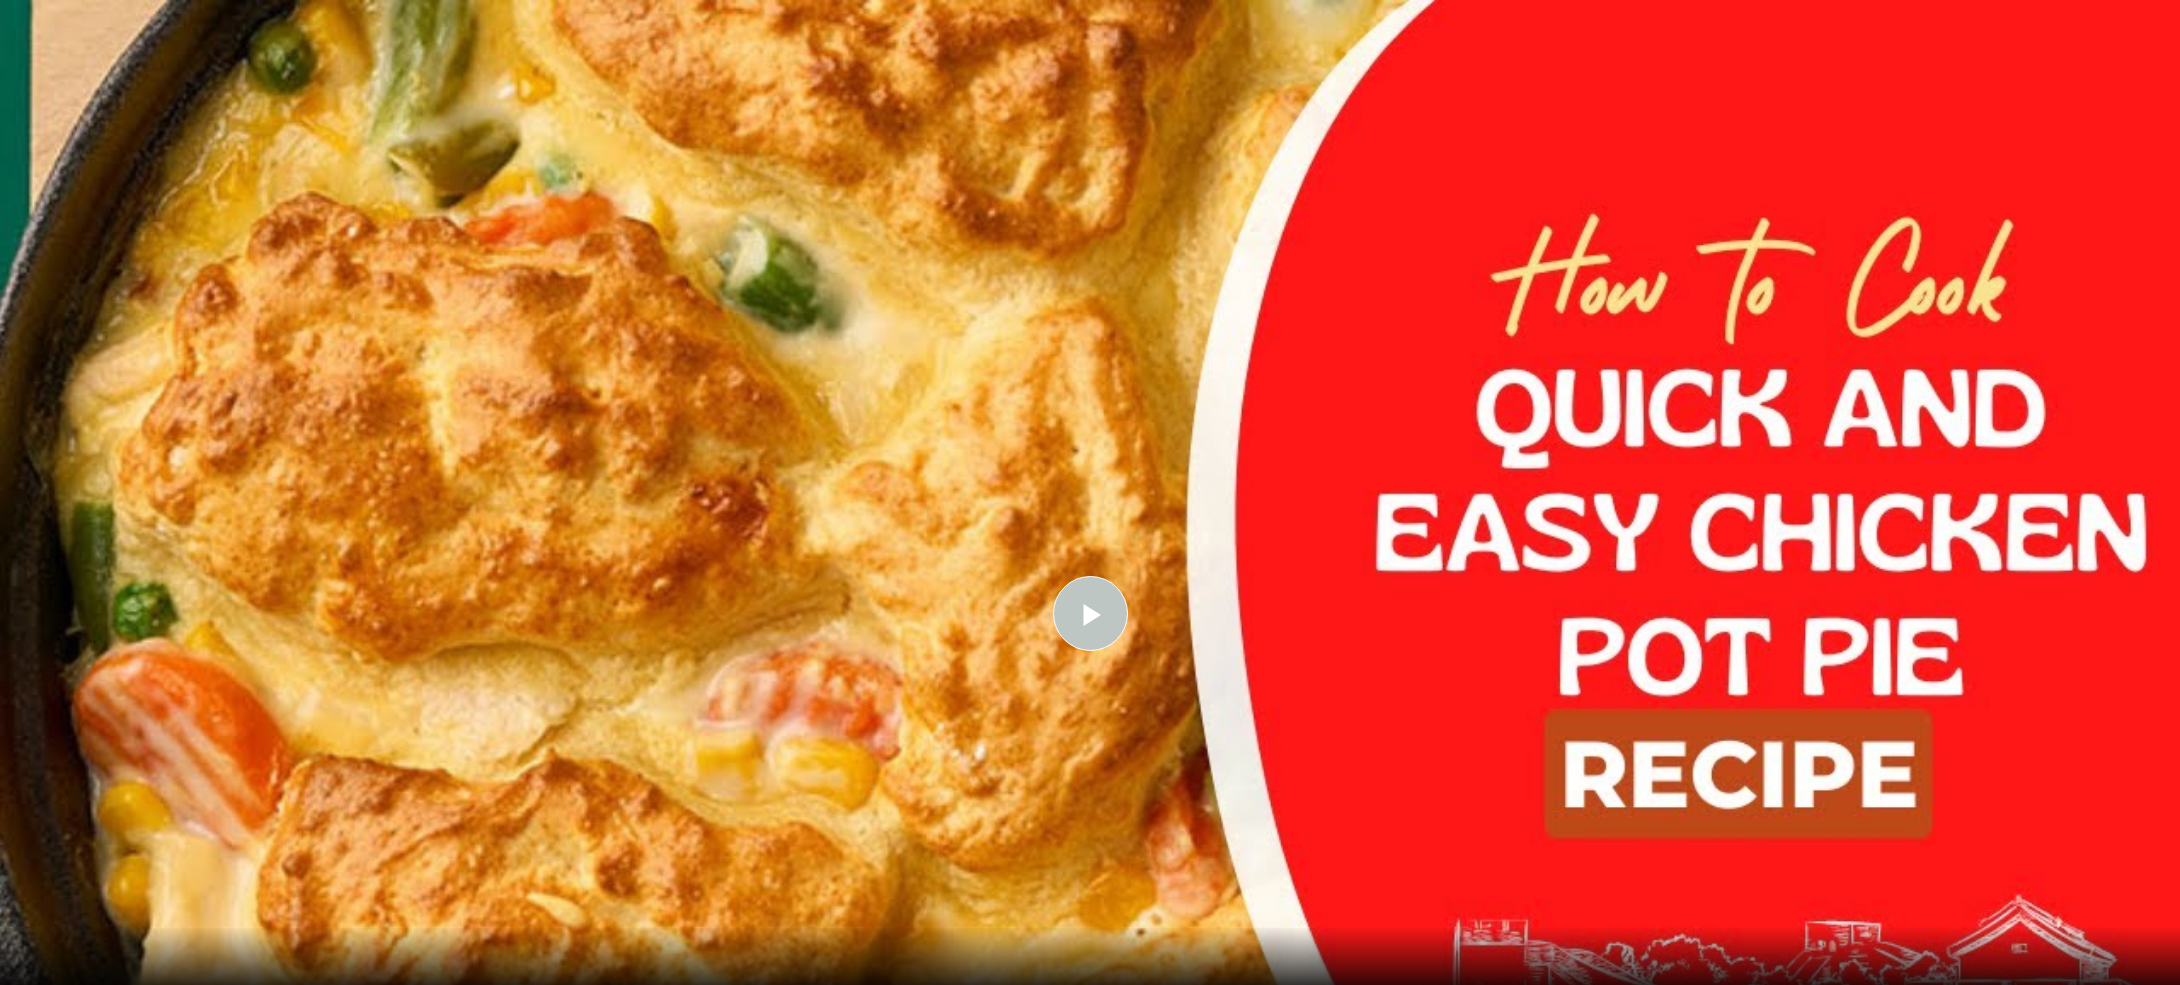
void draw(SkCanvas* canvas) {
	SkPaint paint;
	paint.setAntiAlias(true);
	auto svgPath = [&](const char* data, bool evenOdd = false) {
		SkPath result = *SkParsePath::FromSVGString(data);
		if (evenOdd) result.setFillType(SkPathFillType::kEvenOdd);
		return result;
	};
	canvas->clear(0xffffffff);
	canvas->drawImageRect(SkImages::DeferredFromEncodedData(SkData::MakeFromFileName("img1.png")), SkRect::MakeXYWH(0, 0, 2180, 985), SkSamplingOptions());
	paint.setColor(0xffbec6c4);
	canvas->drawCircle(1090.5, 613.5, 37, paint);
	paint.setStroke(true);
	paint.setStrokeWidth(1);
	paint.setColor(0xffffffff);
	canvas->drawCircle(1090.5, 613.5, 37, paint);
	paint.setStroke(false);
	canvas->drawPath(svgPath("M1083.5 604V626L1101 615Z"), paint);
	{
		const SkColor colors[] = {0x00000000, 0x00000000, 0xcc000000};
		const float stops[] = {0, 0.94, 1};
		const SkPoint ends[] = {{1090, 0}, {1090, 985}};
		paint.setShader(SkGradientShader::MakeLinear(ends, colors, stops, 3, SkTileMode::kClamp));
		paint.setAlpha(255);
	}
	canvas->drawRect(SkRect::MakeXYWH(0, 928, 2180, 57), paint);
}
